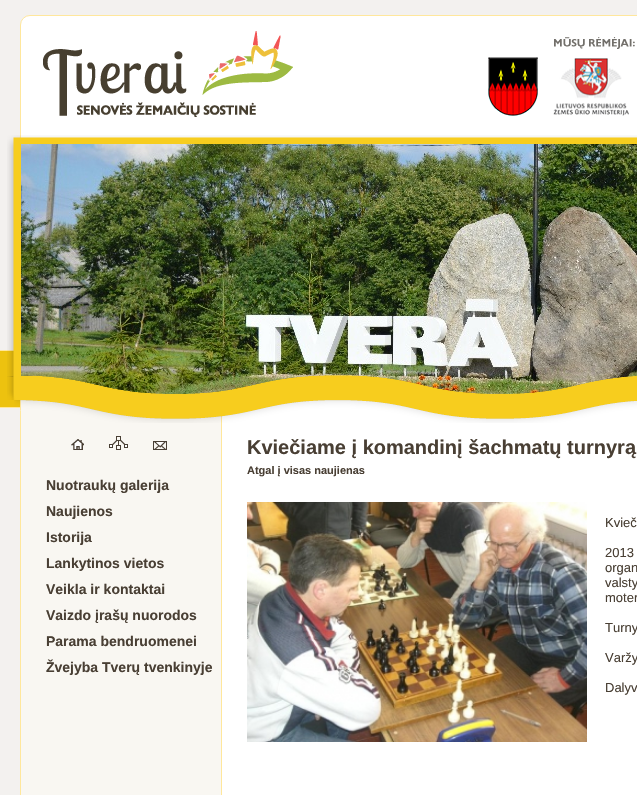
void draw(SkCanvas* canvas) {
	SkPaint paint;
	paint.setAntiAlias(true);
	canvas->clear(0xfff3f1ef);
	paint.setColor(0xffedc20f);
	canvas->drawRect(SkRect::MakeXYWH(0, 351, 20, 56), paint);
	paint.setColor(0xffffe79c);
	canvas->drawRect(SkRect::MakeXYWH(0, 350, 14, 1), paint);
	canvas->drawRect(SkRect::MakeXYWH(0, 407, 20, 1), paint);
	paint.setColor(0xffffffff);
	canvas->drawRoundRect(SkRect::MakeXYWH(20.5, 15.5, 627, 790), 9.5, 9.5, paint);
	paint.setStroke(true);
	paint.setStrokeWidth(1);
	paint.setColor(0xffffe79c);
	canvas->drawRoundRect(SkRect::MakeXYWH(20.5, 15.5, 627, 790), 9.5, 9.5, paint);
	canvas->drawImageRect(SkImages::DeferredFromEncodedData(SkData::MakeFromFileName("img1.png")), SkRect::MakeXYWH(7, 135, 630, 242), SkSamplingOptions());
	canvas->drawImageRect(SkImages::DeferredFromEncodedData(SkData::MakeFromFileName("img2.png")), SkRect::MakeXYWH(21, 144, 616, 250), SkSamplingOptions());
	paint.setStroke(false);
	paint.setColor(0xfff9f7f2);
	canvas->drawRect(SkRect::MakeXYWH(21, 400, 200, 395), paint);
	paint.setColor(0xffffe79c);
	canvas->drawRect(SkRect::MakeXYWH(221, 416, 1, 379), paint);
	canvas->drawImageRect(SkImages::DeferredFromEncodedData(SkData::MakeFromFileName("img3.png")), SkRect::MakeXYWH(7, 375, 630, 48), SkSamplingOptions());
	canvas->drawImageRect(SkImages::DeferredFromEncodedData(SkData::MakeFromFileName("img4.png")), SkRect::MakeXYWH(43, 31, 250, 86), SkSamplingOptions());
	canvas->drawImageRect(SkImages::DeferredFromEncodedData(SkData::MakeFromFileName("img5.png")), SkRect::MakeXYWH(554, 37, 81, 12), SkSamplingOptions());
	canvas->drawImageRect(SkImages::DeferredFromEncodedData(SkData::MakeFromFileName("img6.png")), SkRect::MakeXYWH(488, 57, 50, 59), SkSamplingOptions());
	canvas->drawImageRect(SkImages::DeferredFromEncodedData(SkData::MakeFromFileName("img7.png")), SkRect::MakeXYWH(553, 58, 76, 58), SkSamplingOptions());
	canvas->drawImageRect(SkImages::DeferredFromEncodedData(SkData::MakeFromFileName("img8.png")), SkRect::MakeXYWH(71, 439, 13, 11), SkSamplingOptions());
	canvas->drawImageRect(SkImages::DeferredFromEncodedData(SkData::MakeFromFileName("img9.png")), SkRect::MakeXYWH(109, 436, 19, 14), SkSamplingOptions());
	canvas->drawImageRect(SkImages::DeferredFromEncodedData(SkData::MakeFromFileName("img10.png")), SkRect::MakeXYWH(153, 441, 14, 9), SkSamplingOptions());
	SkFont f1(fontMgr->matchFamilyStyle("Liberation Sans", SkFontStyle::Bold()), 14);
	f1.setSubpixel(true);
	paint.setColor(0xff493f34);
	canvas->drawString("Nuotraukų galerija", 46, 490, f1, paint);
	canvas->drawString("Naujienos", 46, 516, f1, paint);
	canvas->drawString("Istorija", 46, 542, f1, paint);
	canvas->drawString("Lankytinos vietos", 46, 568, f1, paint);
	canvas->drawString("Veikla ir kontaktai", 46, 594, f1, paint);
	canvas->drawString("Vaizdo įrašų nuorodos", 46, 620, f1, paint);
	canvas->drawString("Parama bendruomenei", 46, 646, f1, paint);
	canvas->drawString("Žvejyba Tverų tvenkinyje", 46, 672, f1, paint);
	SkFont f2(fontMgr->matchFamilyStyle("Liberation Sans", SkFontStyle::Bold()), 20);
	f2.setSubpixel(true);
	canvas->drawString("Kviečiame į komandinį šachmatų turnyrą", 247, 454, f2, paint);
	SkFont f3(fontMgr->matchFamilyStyle("Liberation Sans", SkFontStyle::Bold()), 11);
	f3.setSubpixel(true);
	canvas->drawString("Atgal į visas naujienas", 247, 474, f3, paint);
	canvas->drawImageRect(SkImages::DeferredFromEncodedData(SkData::MakeFromFileName("img11.png")), SkRect::MakeXYWH(247, 502, 340, 240), SkSamplingOptions());
	SkFont f4(fontMgr->matchFamilyStyle("Liberation Sans", SkFontStyle::Normal()), 13);
	f4.setSubpixel(true);
	canvas->drawString("Kvieč", 605, 527, f4, paint);
	canvas->drawString("2013", 605, 557, f4, paint);
	canvas->drawString("organ", 605, 572, f4, paint);
	canvas->drawString("valsty", 605, 587, f4, paint);
	canvas->drawString("moter", 605, 602, f4, paint);
	canvas->drawString("Turny", 605, 632, f4, paint);
	canvas->drawString("Varžy", 605, 662, f4, paint);
	canvas->drawString("Dalyv", 605, 692, f4, paint);
}
